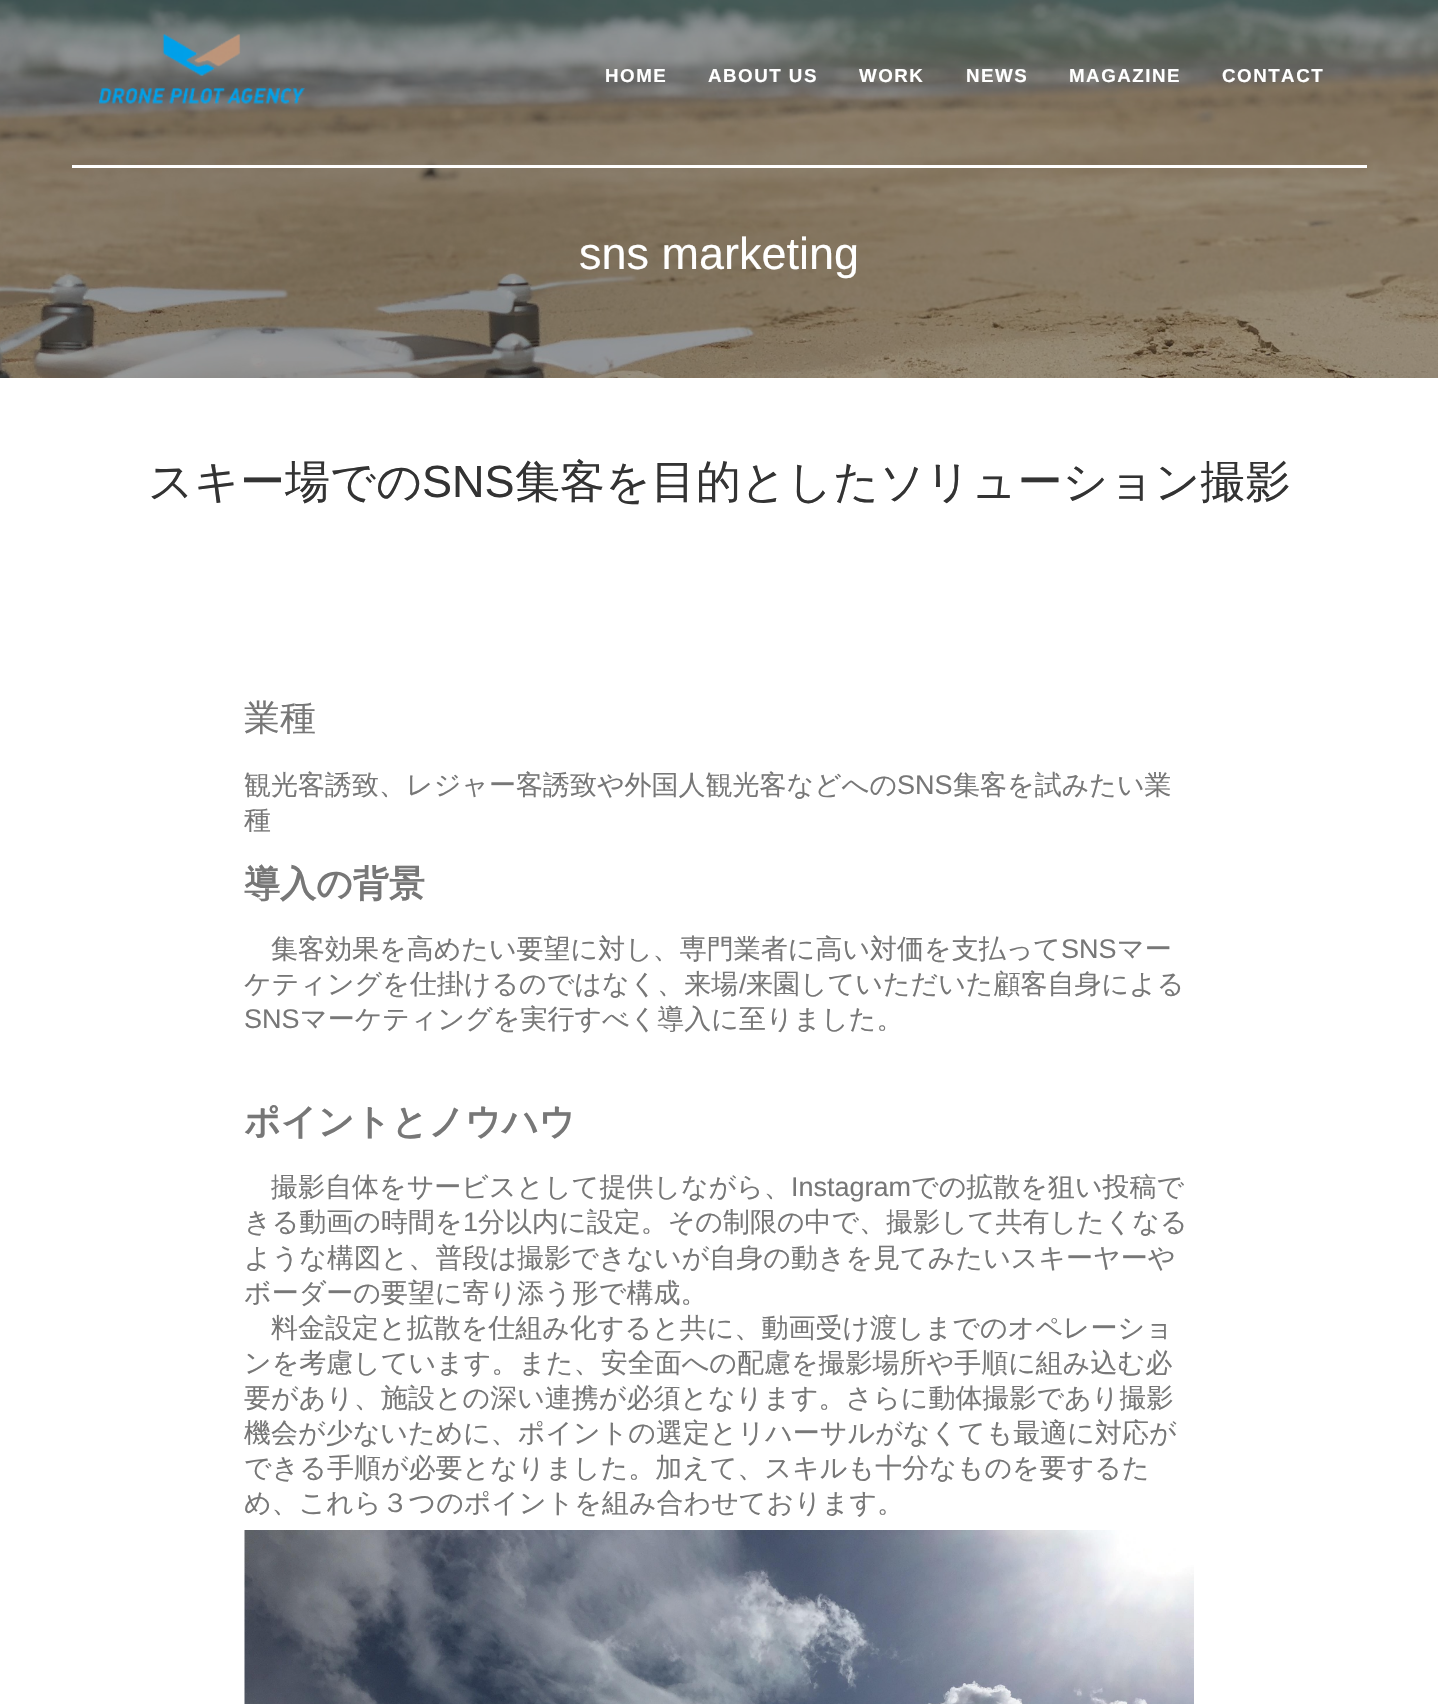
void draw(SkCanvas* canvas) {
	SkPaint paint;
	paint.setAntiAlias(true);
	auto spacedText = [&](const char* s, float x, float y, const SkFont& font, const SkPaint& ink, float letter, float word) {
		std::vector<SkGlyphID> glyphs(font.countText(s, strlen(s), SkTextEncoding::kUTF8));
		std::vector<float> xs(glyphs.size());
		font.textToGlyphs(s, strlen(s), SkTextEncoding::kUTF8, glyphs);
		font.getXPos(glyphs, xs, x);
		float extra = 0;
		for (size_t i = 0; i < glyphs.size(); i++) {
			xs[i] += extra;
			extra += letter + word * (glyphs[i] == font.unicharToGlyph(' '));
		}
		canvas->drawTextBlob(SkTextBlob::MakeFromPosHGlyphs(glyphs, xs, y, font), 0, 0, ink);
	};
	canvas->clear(0xffffffff);
	canvas->drawImageRect(SkImages::DeferredFromEncodedData(SkData::MakeFromFileName("img1.png")), SkRect::MakeXYWH(0, 0, 1438, 378), SkSamplingOptions());
	paint.setColor(0xffffffff);
	canvas->drawRect(SkRect::MakeXYWH(72, 165, 1295, 3), paint);
	canvas->drawImageRect(SkImages::DeferredFromEncodedData(SkData::MakeFromFileName("img2.png")), SkRect::MakeXYWH(98, 34, 207, 70), SkSamplingOptions());
	SkFont f1(fontMgr->matchFamilyStyle("Liberation Sans", SkFontStyle::Bold()), 18.75);
	f1.setSubpixel(true);
	spacedText("HOME", 605, 82, f1, paint, 1.5, 0);
	spacedText("ABOUT US", 708, 82, f1, paint, 1.5, 0);
	spacedText("WORK", 859, 82, f1, paint, 1.5, 0);
	spacedText("NEWS", 966, 82, f1, paint, 1.5, 0);
	spacedText("MAGAZINE", 1069, 82, f1, paint, 1.5, 0);
	spacedText("CONTACT", 1222, 82, f1, paint, 1.5, 0);
	SkFont f2(fontMgr->matchFamilyStyle("Liberation Sans", SkFontStyle::Normal()), 45);
	f2.setSubpixel(true);
	canvas->drawString("sns marketing", 579, 269, f2, paint);
	SkFont f3(fontMgr->matchFamilyStyle("WenQuanYi Zen Hei", SkFontStyle(500, SkFontStyle::kNormal_Width, SkFontStyle::kUpright_Slant)), 45);
	f3.setSubpixel(true);
	paint.setColor(0xff333333);
	canvas->drawString("スキー場での", 148, 497, f3, paint);
	canvas->drawString("SNS", 422, 497, f2, paint);
	canvas->drawString("集客を目的としたソリューション撮影", 515, 497, f3, paint);
	SkFont f4(fontMgr->matchFamilyStyle("WenQuanYi Zen Hei", SkFontStyle(500, SkFontStyle::kNormal_Width, SkFontStyle::kUpright_Slant)), 36);
	f4.setSubpixel(true);
	paint.setColor(0xff777777);
	canvas->drawString("業種", 244, 730, f4, paint);
	SkFont f5(fontMgr->matchFamilyStyle("WenQuanYi Zen Hei", SkFontStyle(500, SkFontStyle::kNormal_Width, SkFontStyle::kUpright_Slant)), 27);
	f5.setSubpixel(true);
	canvas->drawString("観光客誘致、レジャー客誘致や外国人観光客などへの", 244, 794, f5, paint);
	SkFont f6(fontMgr->matchFamilyStyle("Liberation Sans", SkFontStyle::Normal()), 27);
	f6.setSubpixel(true);
	canvas->drawString("SNS", 897, 794, f6, paint);
	canvas->drawString("集客を試みたい業", 953, 794, f5, paint);
	canvas->drawString("種", 244, 829, f5, paint);
	SkFont f7(fontMgr->matchFamilyStyle("WenQuanYi Zen Hei", SkFontStyle::Bold()), 36);
	f7.setSubpixel(true);
	canvas->drawString("導入の背景", 244, 896, f7, paint);
	canvas->drawString("集客効果を高めたい要望に対し、専門業者に高い対価を支払って", 271, 958, f5, paint);
	canvas->drawString("SNS", 1061, 958, f6, paint);
	canvas->drawString("マー", 1117, 958, f5, paint);
	canvas->drawString("ケティングを仕掛けるのではなく、来場", 244, 993, f5, paint);
	canvas->drawString("/", 739, 993, f6, paint);
	canvas->drawString("来園していただいた顧客自身による", 746, 993, f5, paint);
	canvas->drawString("SNS", 244, 1028, f6, paint);
	canvas->drawString("マーケティングを実行すべく導入に至りました。", 300, 1028, f5, paint);
	canvas->drawString("ポイントとノウハウ", 244, 1134, f7, paint);
	canvas->drawString("撮影自体をサービスとして提供しながら、", 271, 1196, f5, paint);
	canvas->drawString("Instagram", 791, 1196, f6, paint);
	canvas->drawString("での拡散を狙い投稿で", 911, 1196, f5, paint);
	canvas->drawString("きる動画の時間を", 244, 1231, f5, paint);
	canvas->drawString("1", 463, 1231, f6, paint);
	canvas->drawString("分以内に設定。その制限の中で、撮影して共有したくなる", 478, 1231, f5, paint);
	canvas->drawString("ような構図と、普段は撮影できないが自身の動きを見てみたいスキーヤーや", 244, 1267, f5, paint);
	canvas->drawString("ボーダーの要望に寄り添う形で構成。", 244, 1302, f5, paint);
	canvas->drawString("料金設定と拡散を仕組み化すると共に、動画受け渡しまでのオペレーショ", 271, 1337, f5, paint);
	canvas->drawString("ンを考慮しています。また、安全面への配慮を撮影場所や手順に組み込む必", 244, 1372, f5, paint);
	canvas->drawString("要があり、施設との深い連携が必須となります。さらに動体撮影であり撮影", 244, 1407, f5, paint);
	canvas->drawString("機会が少ないために、ポイントの選定とリハーサルがなくても最適に対応が", 244, 1442, f5, paint);
	canvas->drawString("できる手順が必要となりました。加えて、スキルも十分なものを要するた", 244, 1477, f5, paint);
	canvas->drawString("め、これら３つのポイントを組み合わせております。", 244, 1512, f5, paint);
	canvas->drawImageRect(SkImages::DeferredFromEncodedData(SkData::MakeFromFileName("img3.png")), SkRect::MakeXYWH(244, 1530, 950, 174), SkSamplingOptions());
}
